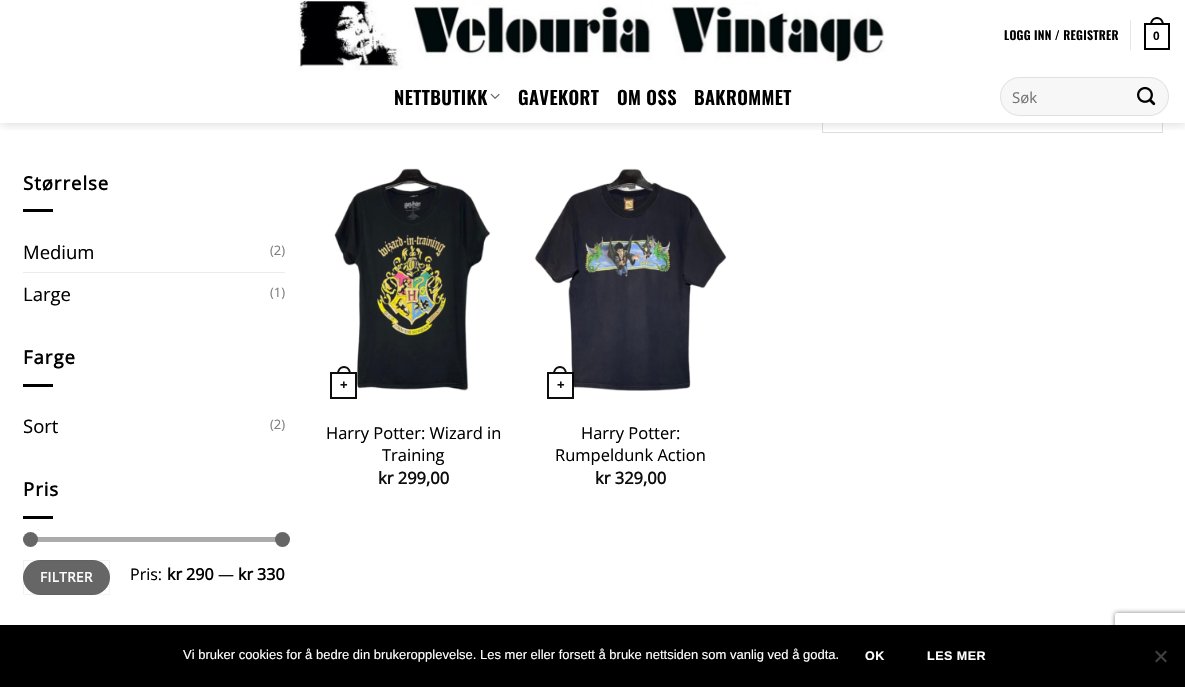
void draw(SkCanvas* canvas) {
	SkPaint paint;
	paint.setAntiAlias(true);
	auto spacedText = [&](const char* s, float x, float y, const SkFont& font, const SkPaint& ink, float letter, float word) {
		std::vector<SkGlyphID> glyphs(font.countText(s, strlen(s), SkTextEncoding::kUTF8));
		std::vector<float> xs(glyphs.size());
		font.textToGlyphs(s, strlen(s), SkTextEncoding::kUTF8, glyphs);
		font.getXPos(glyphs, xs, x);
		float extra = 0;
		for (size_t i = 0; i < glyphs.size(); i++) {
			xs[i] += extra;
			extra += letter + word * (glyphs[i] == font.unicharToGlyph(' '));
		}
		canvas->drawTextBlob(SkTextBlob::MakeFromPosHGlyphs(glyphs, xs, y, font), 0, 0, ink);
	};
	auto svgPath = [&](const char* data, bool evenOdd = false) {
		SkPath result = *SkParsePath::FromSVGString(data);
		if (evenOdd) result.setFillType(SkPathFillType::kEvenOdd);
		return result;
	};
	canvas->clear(0xffffffff);
	paint.setStroke(true);
	paint.setStrokeWidth(1);
	paint.setColor(0xffdddddd);
	canvas->drawRect(SkRect::MakeXYWH(822.5, 88.5, 340, 44), paint);
	canvas->save();
	canvas->clipRect(SkRect::MakeXYWH(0, 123, 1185, 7));
	paint.setStroke(false);
	paint.setColor(0x26000000);
	paint.setMaskFilter(SkMaskFilter::MakeBlur(kNormal_SkBlurStyle, 5));
	canvas->drawRect(SkRect::MakeXYWH(1, 1, 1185, 123), paint);
	paint.setMaskFilter(nullptr);
	canvas->restore();
	canvas->drawImageRect(SkImages::DeferredFromEncodedData(SkData::MakeFromFileName("img1.png")), SkRect::MakeXYWH(298, 0, 587, 70), SkSamplingOptions());
	SkFont f1(fontMgr->matchFamilyStyle("Oswald", SkFontStyle(600, SkFontStyle::kNormal_Width, SkFontStyle::kUpright_Slant)), 12);
	f1.setSubpixel(true);
	paint.setColor(0xff000000);
	spacedText("LOGG INN / REGISTRER", 1004, 40, f1, paint, 0.25, 0);
	paint.setColor(0xffe6e6e6);
	canvas->drawRect(SkRect::MakeXYWH(1130, 20, 1, 30), paint);
	paint.setStroke(true);
	paint.setStrokeWidth(2);
	paint.setColor(0xff000000);
	canvas->drawRect(SkRect::MakeXYWH(1145, 24, 24, 25), paint);
	paint.setStroke(false);
	canvas->drawPath(svgPath("M1157 17C1161.5 17 1164 21 1164 25H1150C1150 21 1152.5 17 1157 17ZM1157 19C1160.5 19 1162 22 1162 25H1152C1152 22 1153.5 19 1157 19Z", true), paint);
	SkFont f2(fontMgr->matchFamilyStyle("Liberation Sans", SkFontStyle::Bold()), 12);
	f2.setSubpixel(true);
	spacedText("0", 1153, 40, f2, paint, 0.25, 0);
	paint.setColor(0xffffffff);
	canvas->drawRect(SkRect::MakeXYWH(822, 88, 341, 35), paint);
	SkFont f3(fontMgr->matchFamilyStyle("Oswald", SkFontStyle(600, SkFontStyle::kNormal_Width, SkFontStyle::kUpright_Slant)), 18.5);
	f3.setSubpixel(true);
	paint.setColor(0xff000000);
	spacedText("NETTBUTIKK", 394, 105, f3, paint, 0.4, 0);
	canvas->drawImageRect(SkImages::DeferredFromEncodedData(SkData::MakeFromFileName("img2.png")), SkRect::MakeXYWH(490, 93, 10, 6), SkSamplingOptions());
	spacedText("GAVEKORT", 518, 105, f3, paint, 0.4, 0);
	spacedText("OM OSS", 617, 105, f3, paint, 0.4, 0);
	spacedText("BAKROMMET", 694, 105, f3, paint, 0.4, 0);
	paint.setColor(0xfff7f7f7);
	canvas->drawRoundRect(SkRect::MakeXYWH(1000, 77, 169, 39), 19.5, 19.5, paint);
	paint.setStroke(true);
	paint.setStrokeWidth(1);
	paint.setColor(0x17000000);
	canvas->drawRoundRect(SkRect::MakeXYWH(1000.5, 77.5, 168, 38), 19, 19, paint);
	SkFont f4(fontMgr->matchFamilyStyle("Open Sans", SkFontStyle::Normal()), 15);
	f4.setSubpixel(true);
	paint.setStroke(false);
	paint.setColor(0xff757575);
	canvas->drawString("Søk", 1012, 103, f4, paint);
	canvas->drawImageRect(SkImages::DeferredFromEncodedData(SkData::MakeFromFileName("img3.png")), SkRect::MakeXYWH(1137, 86, 19, 20), SkSamplingOptions());
	SkFont f5(fontMgr->matchFamilyStyle("Open Sans", SkFontStyle::Bold()), 18.5);
	f5.setSubpixel(true);
	paint.setColor(0xff000000);
	spacedText("Størrelse", 23, 190, f5, paint, 1, 0);
	canvas->drawRect(SkRect::MakeXYWH(23, 209, 30, 3), paint);
	SkFont f6(fontMgr->matchFamilyStyle("Open Sans", SkFontStyle::Normal()), 18.5);
	f6.setSubpixel(true);
	canvas->drawString("Medium", 23, 259, f6, paint);
	SkFont f7(fontMgr->matchFamilyStyle("Open Sans", SkFontStyle::Normal()), 13);
	f7.setSubpixel(true);
	paint.setColor(0xff808080);
	canvas->drawString("(2)", 270, 255, f7, paint);
	paint.setColor(0xffececec);
	canvas->drawRect(SkRect::MakeXYWH(23, 272, 262, 1), paint);
	paint.setColor(0xff000000);
	canvas->drawString("Large", 23, 301, f6, paint);
	paint.setColor(0xff808080);
	canvas->drawString("(1)", 270, 297, f7, paint);
	paint.setColor(0xff000000);
	spacedText("Farge", 23, 364, f5, paint, 1, 0);
	canvas->drawRect(SkRect::MakeXYWH(23, 384, 30, 3), paint);
	canvas->drawString("Sort", 23, 433, f6, paint);
	paint.setColor(0xff808080);
	canvas->drawString("(2)", 270, 429, f7, paint);
	paint.setColor(0xff000000);
	spacedText("Pris", 23, 496, f5, paint, 1, 0);
	canvas->drawRect(SkRect::MakeXYWH(23, 516, 30, 3), paint);
	paint.setColor(0xfff1f1f1);
	canvas->drawRoundRect(SkRect::MakeXYWH(23, 537, 262, 5), 2.5, 2.5, paint);
	paint.setColor(0x80666666);
	canvas->drawRoundRect(SkRect::MakeXYWH(23, 537, 262, 5), 2.5, 2.5, paint);
	paint.setColor(0xff666666);
	canvas->drawCircle(30.5, 539.5, 7.5, paint);
	canvas->drawCircle(282.5, 539.5, 7.5, paint);
	canvas->drawRoundRect(SkRect::MakeXYWH(23, 560, 87, 35), 17.5, 17.5, paint);
	paint.setStroke(true);
	paint.setColor(0x0d000000);
	canvas->drawRect(SkRect::MakeXYWH(23.5, 560.5, 86, 34), paint);
	SkFont f8(fontMgr->matchFamilyStyle("Open Sans", SkFontStyle::Bold()), 13.5);
	f8.setSubpixel(true);
	paint.setStroke(false);
	paint.setColor(0xffffffff);
	spacedText("FILTRER", 40, 582, f8, paint, 0.5, 0);
	SkFont f9(fontMgr->matchFamilyStyle("Open Sans", SkFontStyle::Normal()), 16);
	f9.setSubpixel(true);
	paint.setColor(0xff000000);
	canvas->drawString("Pris:", 130, 580, f9, paint);
	SkFont f10(fontMgr->matchFamilyStyle("Open Sans", SkFontStyle::Bold()), 16);
	f10.setSubpixel(true);
	canvas->drawString("kr 290", 167, 580, f10, paint);
	canvas->drawString("—", 218, 580, f9, paint);
	canvas->drawString("kr 330", 238, 580, f10, paint);
	canvas->drawImageRect(SkImages::DeferredFromEncodedData(SkData::MakeFromFileName("img4.png")), SkRect::MakeXYWH(334, 168, 157, 223), SkSamplingOptions());
	paint.setStroke(true);
	paint.setStrokeWidth(2);
	paint.setColor(0xf2000000);
	canvas->drawRect(SkRect::MakeXYWH(331, 373, 25, 25), paint);
	paint.setStroke(false);
	paint.setColor(0xff0d0d0d);
	canvas->drawPath(svgPath("M344 366C348.5 366 351 370 351 374H337C337 370 339.5 366 344 366ZM344 368C347.5 368 349 371 349 374H339C339 371 340.5 368 344 368Z", true), paint);
	SkFont f11(fontMgr->matchFamilyStyle("Liberation Sans", SkFontStyle::Bold()), 13);
	f11.setSubpixel(true);
	canvas->drawString("+", 340, 389, f11, paint);
	SkFont f12(fontMgr->matchFamilyStyle("Open Sans", SkFontStyle::Normal()), 16.5);
	f12.setSubpixel(true);
	paint.setColor(0xff000000);
	canvas->drawString("Harry Potter: Wizard in", 326, 439, f12, paint);
	canvas->drawString("Training", 382, 461, f12, paint);
	SkFont f13(fontMgr->matchFamilyStyle("Open Sans", SkFontStyle::Bold()), 16.5);
	f13.setSubpixel(true);
	paint.setColor(0xff0d0d0d);
	canvas->drawString("kr 299,00", 378, 484, f13, paint);
	canvas->drawImageRect(SkImages::DeferredFromEncodedData(SkData::MakeFromFileName("img5.png")), SkRect::MakeXYWH(534, 168, 193, 223), SkSamplingOptions());
	paint.setStroke(true);
	paint.setColor(0xf2000000);
	canvas->drawRect(SkRect::MakeXYWH(548, 373, 25, 25), paint);
	paint.setStroke(false);
	paint.setColor(0xff0d0d0d);
	canvas->drawPath(svgPath("M560 366C564.5 366 567 370 567 374H553C553 370 555.5 366 560 366ZM560 368C563.5 368 565 371 565 374H555C555 371 556.5 368 560 368Z", true), paint);
	canvas->drawString("+", 557, 389, f11, paint);
	paint.setColor(0xff000000);
	canvas->drawString("Harry Potter:", 581, 439, f12, paint);
	canvas->drawString("Rumpeldunk Action", 555, 461, f12, paint);
	paint.setColor(0xff0d0d0d);
	canvas->drawString("kr 329,00", 595, 484, f13, paint);
	canvas->save();
	canvas->clipPath(svgPath("M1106 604H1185V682H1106ZM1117 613H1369C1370 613 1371 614 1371 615V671C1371 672 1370 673 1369 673H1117C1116 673 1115 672 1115 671V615C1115 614 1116 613 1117 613Z", true), true);
	paint.setColor(0xff808080);
	paint.setMaskFilter(SkMaskFilter::MakeBlur(kNormal_SkBlurStyle, 2.5));
	canvas->drawRoundRect(SkRect::MakeXYWH(1115, 613, 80, 60), 2, 2, paint);
	paint.setMaskFilter(nullptr);
	canvas->restore();
	paint.setColor(0xff000000);
	canvas->drawRect(SkRect::MakeXYWH(0, 625, 1185, 62), paint);
	SkFont f14(fontMgr->matchFamilyStyle("Liberation Sans", SkFontStyle::Normal()), 13);
	f14.setSubpixel(true);
	paint.setColor(0xffffffff);
	canvas->drawString("Vi bruker cookies for å bedre din brukeropplevelse. Les mer eller forsett å bruke nettsiden som vanlig ved å godta.", 183, 659, f14, paint);
	SkFont f15(fontMgr->matchFamilyStyle("Liberation Sans", SkFontStyle::Bold()), 12.5);
	f15.setSubpixel(true);
	spacedText("OK", 865, 660, f15, paint, 0.5, 0);
	spacedText("LES MER", 927, 660, f15, paint, 0.5, 0);
	paint.setColor(0xff404040);
	canvas->drawPath(svgPath("M1165.5 650.5L1167 652L1156.5 662.5L1155 661Z"), paint);
	canvas->drawPath(svgPath("M1155 652L1156.5 650.5L1167 661L1165.5 662.5Z"), paint);
}
